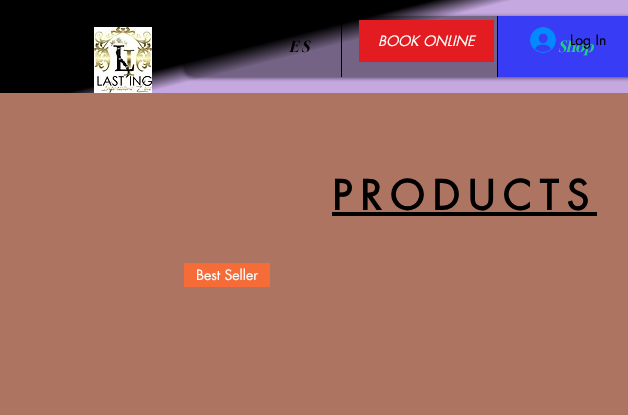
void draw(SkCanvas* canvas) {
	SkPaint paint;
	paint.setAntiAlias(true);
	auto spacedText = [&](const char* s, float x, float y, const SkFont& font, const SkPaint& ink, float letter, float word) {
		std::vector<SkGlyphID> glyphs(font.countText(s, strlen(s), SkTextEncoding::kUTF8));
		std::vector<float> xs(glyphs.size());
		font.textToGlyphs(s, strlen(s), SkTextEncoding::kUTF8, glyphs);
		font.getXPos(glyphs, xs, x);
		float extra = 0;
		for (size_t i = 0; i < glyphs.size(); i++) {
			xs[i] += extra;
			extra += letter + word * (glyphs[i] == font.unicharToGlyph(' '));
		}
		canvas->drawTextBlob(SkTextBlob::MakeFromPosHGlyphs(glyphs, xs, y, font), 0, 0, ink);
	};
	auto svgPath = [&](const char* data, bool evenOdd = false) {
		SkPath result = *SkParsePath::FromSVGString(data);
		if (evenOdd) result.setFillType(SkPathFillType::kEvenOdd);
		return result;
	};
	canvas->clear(0xffad7561);
	{
		const SkColor colors[] = {0xff000000, 0xffc5a8e0};
		const float stops[] = {0.32, 0.38};
		const SkPoint ends[] = {{450, -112}, {530, 205}};
		paint.setShader(SkGradientShader::MakeLinear(ends, colors, stops, 2, SkTileMode::kClamp));
		paint.setAlpha(255);
	}
	canvas->drawRect(SkRect::MakeXYWH(0, 0, 628, 93), paint);
	canvas->drawImageRect(SkImages::DeferredFromEncodedData(SkData::MakeFromFileName("img1.png")), SkRect::MakeXYWH(94, 27, 58, 66), SkSamplingOptions());
	canvas->save();
	canvas->clipPath(svgPath("M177 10H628V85H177ZM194 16H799C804.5 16 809 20.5 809 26V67C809 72.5 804.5 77 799 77H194C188.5 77 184 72.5 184 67V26C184 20.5 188.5 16 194 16Z", true), true);
	paint.setShader(nullptr);
	paint.setColor(0x99000000);
	paint.setMaskFilter(SkMaskFilter::MakeBlur(kNormal_SkBlurStyle, 2));
	canvas->drawRoundRect(SkRect::MakeXYWH(184, 17, 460, 61), 10, 10, paint);
	paint.setMaskFilter(nullptr);
	canvas->restore();
	paint.setColor(0x69000000);
	canvas->drawRoundRect(SkRect::MakeXYWH(184, 16, 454, 61), 10, 10, paint);
	paint.setColor(0xffe21c21);
	canvas->drawRect(SkRect::MakeXYWH(359, 20, 135, 42), paint);
	SkFont f1(fontMgr->matchFamilyStyle("futura", SkFontStyle::Italic()), 14);
	f1.setSubpixel(true);
	paint.setColor(0xffffffff);
	canvas->drawString("BOOK ONLINE", 378, 46, f1, paint);
	paint.setColor(0xff383df5);
	canvas->drawRect(SkRect::MakeXYWH(498, 16, 130, 61), paint);
	canvas->drawImageRect(SkImages::DeferredFromEncodedData(SkData::MakeFromFileName("img2.png")), SkRect::MakeXYWH(530, 27, 26, 26), SkSamplingOptions());
	SkFont f2(fontMgr->matchFamilyStyle("Gloock", SkFontStyle::Italic()), 15);
	f2.setSubpixel(true);
	paint.setColor(0xff20ce88);
	canvas->drawString("Shop", 558, 52, f2, paint);
	SkFont f3(fontMgr->matchFamilyStyle("futura", SkFontStyle::Normal()), 14);
	f3.setSubpixel(true);
	paint.setColor(0xff000000);
	canvas->drawString("Log In", 570, 45, f3, paint);
	canvas->drawString("E S", 289, 52, f2, paint);
	canvas->drawRect(SkRect::MakeXYWH(341, 16, 1, 61), paint);
	canvas->drawRect(SkRect::MakeXYWH(497, 16, 1, 61), paint);
	SkFont f4(fontMgr->matchFamilyStyle("futura", SkFontStyle::Bold()), 40);
	f4.setSubpixel(true);
	spacedText("PRODUCTS", 332, 210, f4, paint, 8, 0);
	canvas->drawRect(SkRect::MakeXYWH(332, 212, 265, 4), paint);
	paint.setColor(0xfff56c38);
	canvas->drawRect(SkRect::MakeXYWH(184, 263, 86, 24), paint);
	paint.setColor(0xffffffff);
	canvas->drawString("Best Seller", 196, 280, f3, paint);
}
